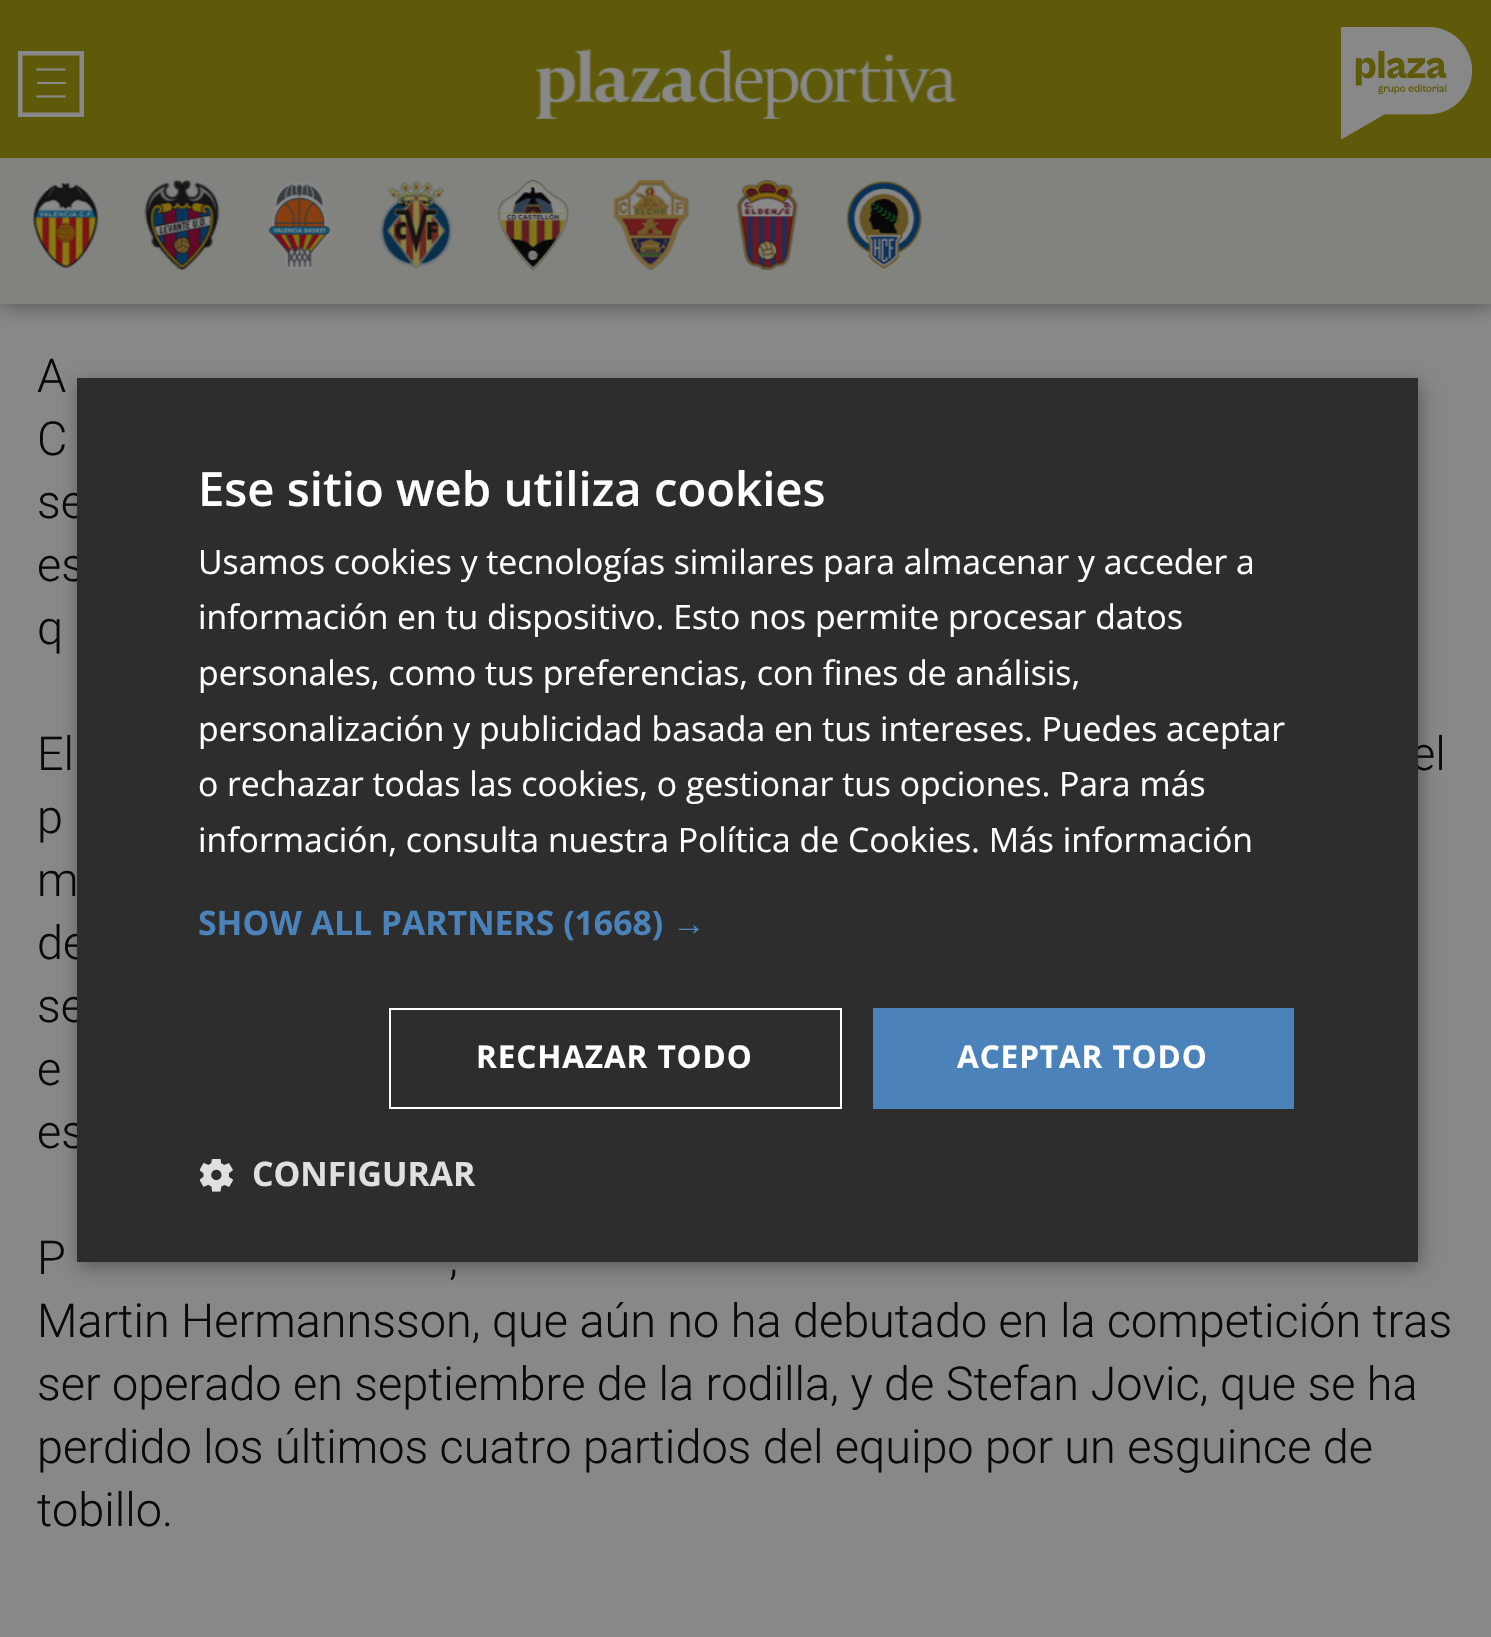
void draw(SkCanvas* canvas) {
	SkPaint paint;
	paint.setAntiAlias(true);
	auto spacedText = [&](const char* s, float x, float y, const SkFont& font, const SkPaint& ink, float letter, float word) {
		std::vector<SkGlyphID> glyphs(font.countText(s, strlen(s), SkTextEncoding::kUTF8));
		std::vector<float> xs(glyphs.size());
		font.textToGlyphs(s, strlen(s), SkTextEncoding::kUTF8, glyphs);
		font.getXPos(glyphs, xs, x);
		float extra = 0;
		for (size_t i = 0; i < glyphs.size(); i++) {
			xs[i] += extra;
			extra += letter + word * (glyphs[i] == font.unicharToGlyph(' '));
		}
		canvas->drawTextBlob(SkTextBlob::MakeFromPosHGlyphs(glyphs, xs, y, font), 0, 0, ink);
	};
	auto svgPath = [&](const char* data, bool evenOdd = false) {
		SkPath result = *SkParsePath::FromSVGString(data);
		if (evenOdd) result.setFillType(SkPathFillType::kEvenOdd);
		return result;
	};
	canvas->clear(0xff888888);
	paint.setColor(0x80090909);
	paint.setMaskFilter(SkMaskFilter::MakeBlur(kNormal_SkBlurStyle, 11));
	canvas->drawRect(SkRect::MakeXYWH(0, 0, 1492, 304), paint);
	paint.setMaskFilter(nullptr);
	paint.setColor(0xff5f5a09);
	canvas->drawRect(SkRect::MakeXYWH(0, 0, 1491, 158), paint);
	paint.setStroke(true);
	paint.setStrokeWidth(4.5);
	paint.setColor(0xff888888);
	canvas->drawRect(SkRect::MakeXYWH(20.25, 53.25, 61.5, 61.5), paint);
	paint.setStrokeWidth(2.2);
	canvas->drawPath(svgPath("M36.5 69.5H65.5"), paint);
	paint.setStroke(false);
	canvas->drawRect(SkRect::MakeXYWH(37, 82, 29, 2), paint);
	paint.setStroke(true);
	canvas->drawPath(svgPath("M36.5 96.5H65.5"), paint);
	canvas->drawImageRect(SkImages::DeferredFromEncodedData(SkData::MakeFromFileName("img1.png")), SkRect::MakeXYWH(535, 48, 422, 71), SkSamplingOptions());
	canvas->drawImageRect(SkImages::DeferredFromEncodedData(SkData::MakeFromFileName("img2.png")), SkRect::MakeXYWH(1341, 27, 131, 113), SkSamplingOptions());
	paint.setStroke(false);
	paint.setColor(0xff82827f);
	canvas->drawRect(SkRect::MakeXYWH(0, 158, 1491, 146), paint);
	canvas->drawImageRect(SkImages::DeferredFromEncodedData(SkData::MakeFromFileName("img3.png")), SkRect::MakeXYWH(32, 182, 67, 87), SkSamplingOptions());
	canvas->drawImageRect(SkImages::DeferredFromEncodedData(SkData::MakeFromFileName("img4.png")), SkRect::MakeXYWH(144, 180, 76, 90), SkSamplingOptions());
	canvas->drawImageRect(SkImages::DeferredFromEncodedData(SkData::MakeFromFileName("img5.png")), SkRect::MakeXYWH(266, 181, 66, 89), SkSamplingOptions());
	canvas->drawImageRect(SkImages::DeferredFromEncodedData(SkData::MakeFromFileName("img6.png")), SkRect::MakeXYWH(379, 180, 74, 89), SkSamplingOptions());
	canvas->drawImageRect(SkImages::DeferredFromEncodedData(SkData::MakeFromFileName("img7.png")), SkRect::MakeXYWH(497, 180, 72, 90), SkSamplingOptions());
	canvas->drawImageRect(SkImages::DeferredFromEncodedData(SkData::MakeFromFileName("img8.png")), SkRect::MakeXYWH(612, 180, 78, 90), SkSamplingOptions());
	canvas->drawImageRect(SkImages::DeferredFromEncodedData(SkData::MakeFromFileName("img9.png")), SkRect::MakeXYWH(736, 180, 63, 90), SkSamplingOptions());
	canvas->drawImageRect(SkImages::DeferredFromEncodedData(SkData::MakeFromFileName("img10.png")), SkRect::MakeXYWH(846, 181, 77, 88), SkSamplingOptions());
	SkFont f1(fontMgr->matchFamilyStyle("Roboto", SkFontStyle(300, SkFontStyle::kNormal_Width, SkFontStyle::kUpright_Slant)), 46.8);
	f1.setSubpixel(true);
	paint.setColor(0xff090909);
	canvas->drawString("A", 37, 392, f1, paint);
	canvas->drawString("C", 37, 455, f1, paint);
	canvas->drawString("se", 37, 518, f1, paint);
	canvas->drawString("es", 37, 581, f1, paint);
	canvas->drawString("q", 37, 644, f1, paint);
	canvas->drawString("El", 37, 770, f1, paint);
	canvas->drawString("el", 1411, 770, f1, paint);
	canvas->drawString("p", 37, 833, f1, paint);
	canvas->drawString("m", 37, 896, f1, paint);
	canvas->drawString("de", 37, 959, f1, paint);
	canvas->drawString("se", 37, 1022, f1, paint);
	canvas->drawString("e", 37, 1085, f1, paint);
	canvas->drawString("es", 37, 1148, f1, paint);
	canvas->drawString("P", 37, 1274, f1, paint);
	canvas->drawString(",", 449, 1274, f1, paint);
	canvas->drawString("Martin Hermannsson, que aún no ha debutado en la competición tras", 37, 1337, f1, paint);
	canvas->drawString("ser operado en septiembre de la rodilla, y de Stefan Jovic, que se ha", 37, 1400, f1, paint);
	canvas->drawString("perdido los últimos cuatro partidos del equipo por un esguince de", 37, 1463, f1, paint);
	canvas->drawString("tobillo.", 37, 1526, f1, paint);
	paint.setColor(0x59000000);
	paint.setMaskFilter(SkMaskFilter::MakeBlur(kNormal_SkBlurStyle, 9));
	canvas->drawRect(SkRect::MakeXYWH(79, 383, 1341, 884), paint);
	paint.setMaskFilter(nullptr);
	paint.setColor(0xff2d2d2d);
	canvas->drawRect(SkRect::MakeXYWH(77, 378, 1341, 884), paint);
	SkFont f2(fontMgr->matchFamilyStyle("Open Sans", SkFontStyle(600, SkFontStyle::kNormal_Width, SkFontStyle::kUpright_Slant)), 47.25);
	f2.setSubpixel(true);
	paint.setColor(0xffffffff);
	canvas->drawString("Ese sitio web utiliza cookies", 198, 506, f2, paint);
	SkFont f3(fontMgr->matchFamilyStyle("Open Sans", SkFontStyle::Normal()), 33.75);
	f3.setSubpixel(true);
	canvas->drawString("Usamos cookies y tecnologías similares para almacenar y acceder a", 198, 574, f3, paint);
	canvas->drawString("información en tu dispositivo. Esto nos permite procesar datos", 198, 629, f3, paint);
	canvas->drawString("personales, como tus preferencias, con fines de análisis,", 198, 685, f3, paint);
	canvas->drawString("personalización y publicidad basada en tus intereses. Puedes aceptar", 198, 741, f3, paint);
	canvas->drawString("o rechazar todas las cookies, o gestionar tus opciones. Para más", 198, 796, f3, paint);
	canvas->drawString("información, consulta nuestra Política de Cookies. Más información", 198, 852, f3, paint);
	SkFont f4(fontMgr->matchFamilyStyle("Open Sans", SkFontStyle::Bold()), 33.75);
	f4.setSubpixel(true);
	paint.setColor(0xff4a82b9);
	canvas->drawString("SHOW ALL PARTNERS (1668)", 198, 935, f4, paint);
	SkFont f5(fontMgr->matchFamilyStyle("Liberation Sans", SkFontStyle::Bold()), 33.75);
	f5.setSubpixel(true);
	canvas->drawString("→", 672, 935, f5, paint);
	paint.setStroke(true);
	paint.setStrokeWidth(2);
	paint.setColor(0xffffffff);
	canvas->drawRect(SkRect::MakeXYWH(390, 1009, 451, 99), paint);
	SkFont f6(fontMgr->matchFamilyStyle("Open Sans", SkFontStyle::Bold()), 31.5);
	f6.setSubpixel(true);
	paint.setStroke(false);
	spacedText("RECHAZAR TODO", 476, 1068, f6, paint, 0.9, 0);
	paint.setColor(0xff4a82b9);
	canvas->drawRect(SkRect::MakeXYWH(873, 1008, 421, 101), paint);
	paint.setColor(0xffffffff);
	spacedText("ACEPTAR TODO", 957, 1068, f6, paint, 0.9, 0);
	canvas->drawImageRect(SkImages::DeferredFromEncodedData(SkData::MakeFromFileName("img11.png")), SkRect::MakeXYWH(200, 1159, 34, 33), SkSamplingOptions());
	paint.setColor(0xffe0e0e0);
	canvas->drawString("CONFIGURAR", 252, 1186, f4, paint);
}
